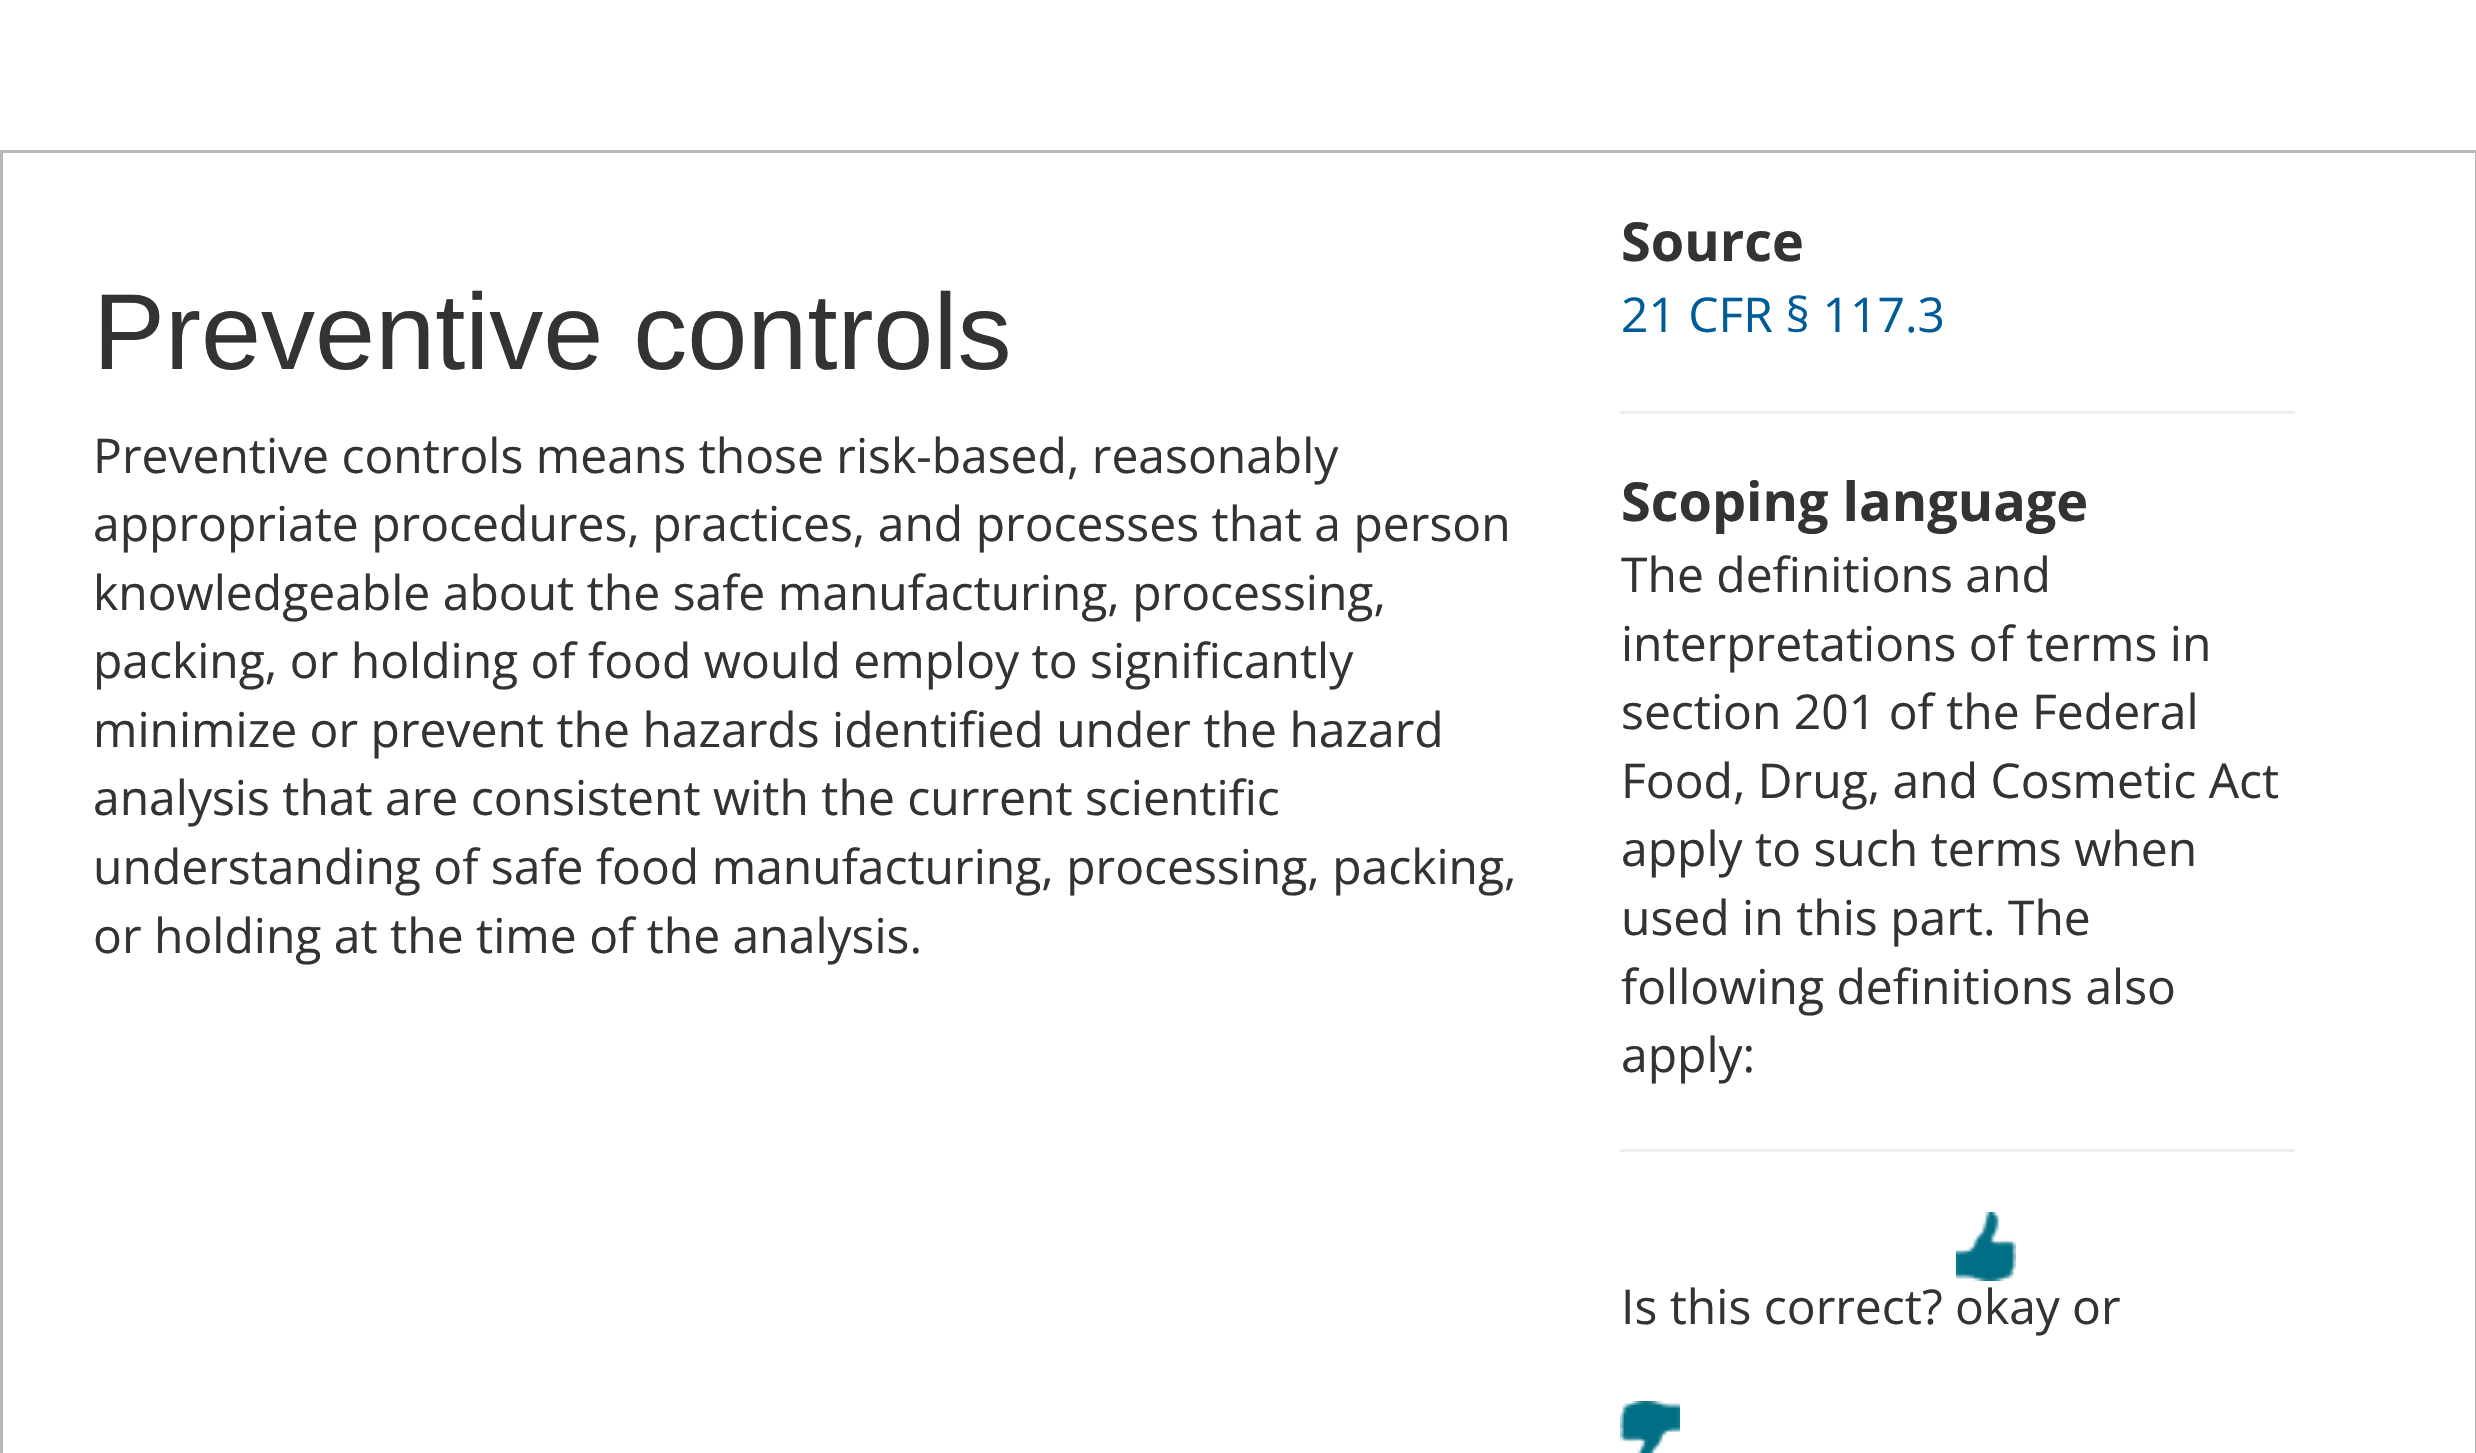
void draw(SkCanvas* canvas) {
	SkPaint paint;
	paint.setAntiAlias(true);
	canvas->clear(0xffffffff);
	paint.setStroke(true);
	paint.setStrokeWidth(3);
	paint.setColor(0xffb7b7b7);
	canvas->drawRect(SkRect::MakeXYWH(1.5, 151.5, 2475, 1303), paint);
	SkFont f1(fontMgr->matchFamilyStyle("Liberation Sans", SkFontStyle::Normal()), 108);
	f1.setSubpixel(true);
	paint.setStroke(false);
	paint.setColor(0xff333333);
	canvas->drawString("Preventive controls", 93, 369, f1, paint);
	SkFont f2(fontMgr->matchFamilyStyle("Open Sans", SkFontStyle::Normal()), 48);
	f2.setSubpixel(true);
	canvas->drawString("Preventive controls means those risk-based, reasonably", 93, 473, f2, paint);
	canvas->drawString("appropriate procedures, practices, and processes that a person", 93, 541, f2, paint);
	canvas->drawString("knowledgeable about the safe manufacturing, processing,", 93, 610, f2, paint);
	canvas->drawString("packing, or holding of food would employ to significantly", 93, 678, f2, paint);
	canvas->drawString("minimize or prevent the hazards identified under the hazard", 93, 747, f2, paint);
	canvas->drawString("analysis that are consistent with the current scientific", 93, 815, f2, paint);
	canvas->drawString("understanding of safe food manufacturing, processing, packing,", 93, 884, f2, paint);
	canvas->drawString("or holding at the time of the analysis.", 93, 953, f2, paint);
	SkFont f3(fontMgr->matchFamilyStyle("Open Sans", SkFontStyle::Bold()), 54);
	f3.setSubpixel(true);
	canvas->drawString("Source", 1621, 261, f3, paint);
	paint.setColor(0xff005c99);
	canvas->drawString("21 CFR § 117.3", 1621, 332, f2, paint);
	paint.setColor(0xffeeeeee);
	canvas->drawRect(SkRect::MakeXYWH(1620, 411, 675, 3), paint);
	paint.setColor(0xff333333);
	canvas->drawString("Scoping language", 1621, 521, f3, paint);
	canvas->drawString("The definitions and", 1621, 592, f2, paint);
	canvas->drawString("interpretations of terms in", 1621, 661, f2, paint);
	canvas->drawString("section 201 of the Federal", 1621, 729, f2, paint);
	canvas->drawString("Food, Drug, and Cosmetic Act", 1621, 798, f2, paint);
	canvas->drawString("apply to such terms when", 1621, 866, f2, paint);
	canvas->drawString("used in this part. The", 1621, 935, f2, paint);
	canvas->drawString("following definitions also", 1621, 1004, f2, paint);
	canvas->drawString("apply:", 1621, 1072, f2, paint);
	paint.setColor(0xffeeeeee);
	canvas->drawRect(SkRect::MakeXYWH(1620, 1149, 675, 3), paint);
	canvas->drawImageRect(SkImages::DeferredFromEncodedData(SkData::MakeFromFileName("img1.png")), SkRect::MakeXYWH(1956, 1212, 60, 69), SkSamplingOptions());
	paint.setColor(0xff333333);
	canvas->drawString("Is this correct? okay", 1621, 1324, f2, paint);
	canvas->drawString("or", 2072, 1324, f2, paint);
	canvas->drawImageRect(SkImages::DeferredFromEncodedData(SkData::MakeFromFileName("img2.png")), SkRect::MakeXYWH(1620, 1401, 60, 52), SkSamplingOptions());
}
